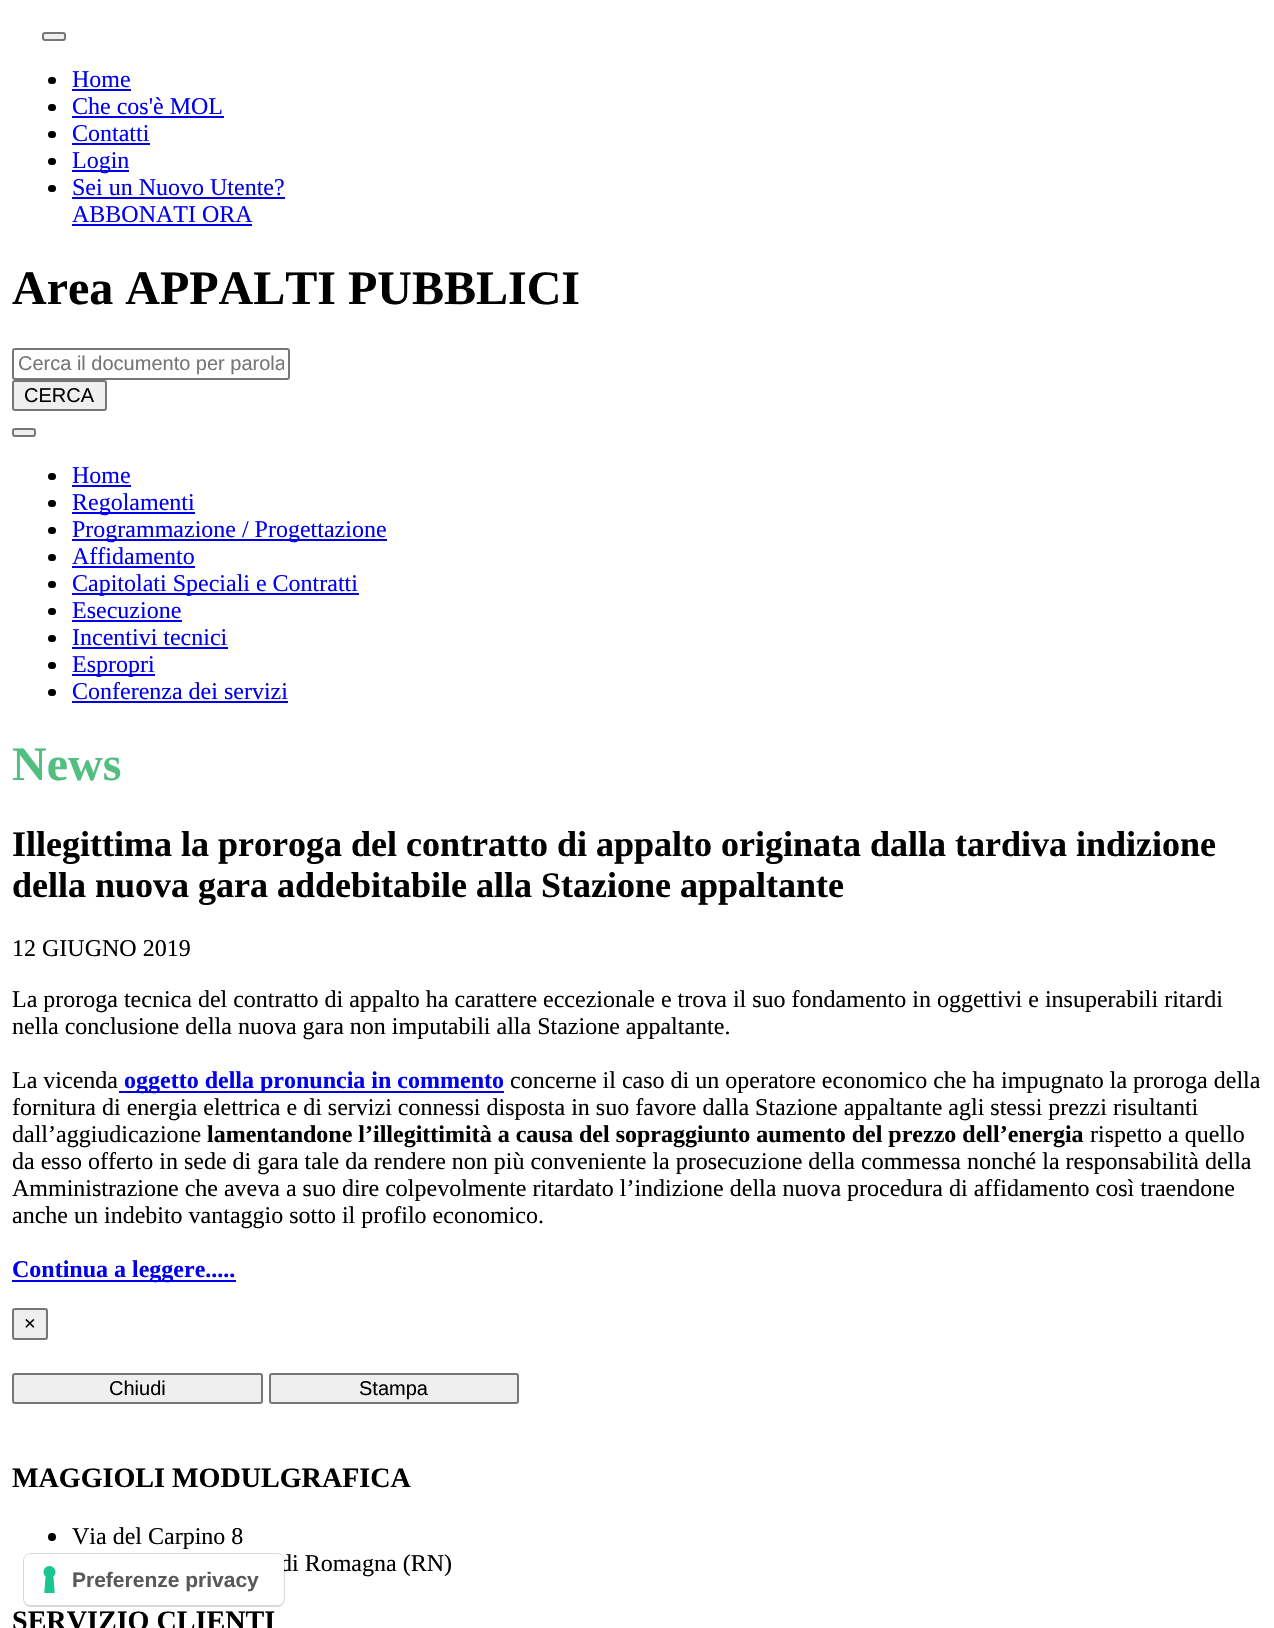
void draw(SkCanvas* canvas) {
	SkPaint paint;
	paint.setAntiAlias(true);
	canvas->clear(0xffffffff);
	paint.setColor(0xffefefef);
	canvas->drawRoundRect(SkRect::MakeXYWH(43, 33, 22, 7), 2, 2, paint);
	paint.setStroke(true);
	paint.setStrokeWidth(2);
	paint.setColor(0xff767676);
	canvas->drawRoundRect(SkRect::MakeXYWH(43, 33, 22, 7), 2, 2, paint);
	paint.setStroke(false);
	paint.setColor(0xff000000);
	canvas->drawRoundRect(SkRect::MakeXYWH(48, 77, 8, 7), 3.5, 3.5, paint);
	SkFont f1(fontMgr->matchFamilyStyle("Liberation Serif", SkFontStyle::Normal()), 24);
	f1.setSubpixel(true);
	paint.setColor(0xff0000ee);
	canvas->drawString("Home", 72, 87, f1, paint);
	canvas->drawRect(SkRect::MakeXYWH(72, 89, 59, 2), paint);
	paint.setColor(0xff000000);
	canvas->drawRoundRect(SkRect::MakeXYWH(48, 104, 8, 7), 3.5, 3.5, paint);
	paint.setColor(0xff0000ee);
	canvas->drawString("Che cos'è MOL", 72, 114, f1, paint);
	canvas->drawRect(SkRect::MakeXYWH(72, 116, 152, 2), paint);
	paint.setColor(0xff000000);
	canvas->drawRoundRect(SkRect::MakeXYWH(48, 131, 8, 7), 3.5, 3.5, paint);
	paint.setColor(0xff0000ee);
	canvas->drawString("Contatti", 72, 141, f1, paint);
	canvas->drawRect(SkRect::MakeXYWH(72, 143, 78, 2), paint);
	paint.setColor(0xff000000);
	canvas->drawRoundRect(SkRect::MakeXYWH(48, 158, 8, 7), 3.5, 3.5, paint);
	paint.setColor(0xff0000ee);
	canvas->drawRect(SkRect::MakeXYWH(72, 170, 57, 2), paint);
	canvas->drawString("Login", 72, 168, f1, paint);
	paint.setColor(0xff000000);
	canvas->drawRoundRect(SkRect::MakeXYWH(48, 185, 8, 7), 3.5, 3.5, paint);
	paint.setColor(0xff0000ee);
	canvas->drawString("Sei un Nuovo Utente?", 72, 195, f1, paint);
	canvas->drawRect(SkRect::MakeXYWH(72, 197, 213, 2), paint);
	canvas->drawString("ABBONATI ORA", 72, 222, f1, paint);
	canvas->drawRect(SkRect::MakeXYWH(72, 224, 180, 2), paint);
	SkFont f2(fontMgr->matchFamilyStyle("Liberation Serif", SkFontStyle::Bold()), 48);
	f2.setSubpixel(true);
	paint.setColor(0xff000000);
	canvas->drawString("Area APPALTI PUBBLICI", 12, 304, f2, paint);
	paint.setStroke(true);
	paint.setColor(0xff767676);
	canvas->drawRoundRect(SkRect::MakeXYWH(13, 349, 276, 30), 2, 2, paint);
	canvas->save();
	canvas->clipRect(SkRect::MakeXYWH(18, 353, 266, 22));
	SkFont f3(fontMgr->matchFamilyStyle("Liberation Sans", SkFontStyle::Normal()), 20);
	f3.setSubpixel(true);
	paint.setStroke(false);
	paint.setColor(0xff757575);
	canvas->drawString("Cerca il documento per parola", 18, 370, f3, paint);
	canvas->restore();
	paint.setColor(0xffefefef);
	canvas->drawRoundRect(SkRect::MakeXYWH(13, 381, 93, 29), 2, 2, paint);
	paint.setStroke(true);
	paint.setColor(0xff767676);
	canvas->drawRoundRect(SkRect::MakeXYWH(13, 381, 93, 29), 2, 2, paint);
	paint.setStroke(false);
	paint.setColor(0xff000000);
	canvas->drawString("CERCA", 24, 402, f3, paint);
	paint.setColor(0xffefefef);
	canvas->drawRoundRect(SkRect::MakeXYWH(13, 429, 22, 7), 2, 2, paint);
	paint.setStroke(true);
	paint.setColor(0xff767676);
	canvas->drawRoundRect(SkRect::MakeXYWH(13, 429, 22, 7), 2, 2, paint);
	paint.setStroke(false);
	paint.setColor(0xff000000);
	canvas->drawRoundRect(SkRect::MakeXYWH(48, 473, 8, 7), 3.5, 3.5, paint);
	paint.setColor(0xff0000ee);
	canvas->drawString("Home", 72, 483, f1, paint);
	canvas->drawRect(SkRect::MakeXYWH(72, 485, 59, 2), paint);
	paint.setColor(0xff000000);
	canvas->drawRoundRect(SkRect::MakeXYWH(48, 500, 8, 7), 3.5, 3.5, paint);
	paint.setColor(0xff0000ee);
	canvas->drawRect(SkRect::MakeXYWH(72, 512, 123, 2), paint);
	canvas->drawString("Regolamenti", 72, 510, f1, paint);
	paint.setColor(0xff000000);
	canvas->drawRoundRect(SkRect::MakeXYWH(48, 527, 8, 7), 3.5, 3.5, paint);
	paint.setColor(0xff0000ee);
	canvas->drawRect(SkRect::MakeXYWH(72, 539, 315, 2), paint);
	canvas->drawString("Programmazione / Progettazione", 72, 537, f1, paint);
	paint.setColor(0xff000000);
	canvas->drawRoundRect(SkRect::MakeXYWH(48, 554, 8, 7), 3.5, 3.5, paint);
	paint.setColor(0xff0000ee);
	canvas->drawString("Affidamento", 72, 564, f1, paint);
	canvas->drawRect(SkRect::MakeXYWH(72, 566, 123, 2), paint);
	paint.setColor(0xff000000);
	canvas->drawRoundRect(SkRect::MakeXYWH(48, 581, 8, 7), 3.5, 3.5, paint);
	paint.setColor(0xff0000ee);
	canvas->drawRect(SkRect::MakeXYWH(72, 593, 287, 2), paint);
	canvas->drawString("Capitolati Speciali e Contratti", 72, 591, f1, paint);
	paint.setColor(0xff000000);
	canvas->drawRoundRect(SkRect::MakeXYWH(48, 608, 8, 7), 3.5, 3.5, paint);
	paint.setColor(0xff0000ee);
	canvas->drawString("Esecuzione", 72, 618, f1, paint);
	canvas->drawRect(SkRect::MakeXYWH(72, 620, 110, 2), paint);
	paint.setColor(0xff000000);
	canvas->drawRoundRect(SkRect::MakeXYWH(48, 635, 8, 7), 3.5, 3.5, paint);
	paint.setColor(0xff0000ee);
	canvas->drawString("Incentivi tecnici", 72, 645, f1, paint);
	canvas->drawRect(SkRect::MakeXYWH(72, 647, 156, 2), paint);
	paint.setColor(0xff000000);
	canvas->drawRoundRect(SkRect::MakeXYWH(48, 662, 8, 7), 3.5, 3.5, paint);
	paint.setColor(0xff0000ee);
	canvas->drawRect(SkRect::MakeXYWH(72, 674, 83, 2), paint);
	canvas->drawString("Espropri", 72, 672, f1, paint);
	paint.setColor(0xff000000);
	canvas->drawRoundRect(SkRect::MakeXYWH(48, 689, 8, 7), 3.5, 3.5, paint);
	paint.setColor(0xff0000ee);
	canvas->drawString("Conferenza dei servizi", 72, 699, f1, paint);
	canvas->drawRect(SkRect::MakeXYWH(72, 701, 216, 2), paint);
	paint.setColor(0xff52be7f);
	canvas->drawString("News", 12, 780, f2, paint);
	SkFont f4(fontMgr->matchFamilyStyle("Liberation Serif", SkFontStyle::Bold()), 36);
	f4.setSubpixel(true);
	paint.setColor(0xff000000);
	canvas->drawString("Illegittima la proroga del contratto di appalto originata dalla tardiva indizione", 12, 856, f4, paint);
	canvas->drawString("della nuova gara addebitabile alla Stazione appaltante", 12, 897, f4, paint);
	canvas->drawString("12 GIUGNO 2019", 12, 956, f1, paint);
	canvas->drawString("La proroga tecnica del contratto di appalto ha carattere eccezionale e trova il suo fondamento in oggettivi e insuperabili ritardi", 12, 1007, f1, paint);
	canvas->drawString("nella conclusione della nuova gara non imputabili alla Stazione appaltante.", 12, 1034, f1, paint);
	canvas->drawString("La vicenda", 12, 1088, f1, paint);
	paint.setColor(0xff0000ee);
	canvas->drawRect(SkRect::MakeXYWH(119, 1091, 385, 2), paint);
	SkFont f5(fontMgr->matchFamilyStyle("Liberation Serif", SkFontStyle::Bold()), 24);
	f5.setSubpixel(true);
	canvas->drawString("oggetto della pronuncia in commento", 124, 1088, f5, paint);
	paint.setColor(0xff000000);
	canvas->drawString("concerne il caso di un operatore economico che ha impugnato la proroga della", 510, 1088, f1, paint);
	canvas->drawString("fornitura di energia elettrica e di servizi connessi disposta in suo favore dalla Stazione appaltante agli stessi prezzi risultanti", 12, 1115, f1, paint);
	canvas->drawString("dall’aggiudicazione", 12, 1142, f1, paint);
	canvas->drawString("lamentandone l’illegittimità a causa del sopraggiunto aumento del prezzo dell’energia", 207, 1142, f5, paint);
	canvas->drawString("rispetto a quello", 1090, 1142, f1, paint);
	canvas->drawString("da esso offerto in sede di gara tale da rendere non più conveniente la prosecuzione della commessa nonché la responsabilità della", 12, 1169, f1, paint);
	canvas->drawString("Amministrazione che aveva a suo dire colpevolmente ritardato l’indizione della nuova procedura di affidamento così traendone", 12, 1196, f1, paint);
	canvas->drawString("anche un indebito vantaggio sotto il profilo economico.", 12, 1223, f1, paint);
	paint.setColor(0xff0000ee);
	canvas->drawRect(SkRect::MakeXYWH(12, 1280, 224, 2), paint);
	canvas->drawString("Continua a leggere.....", 12, 1277, f5, paint);
	paint.setColor(0xffefefef);
	canvas->drawRoundRect(SkRect::MakeXYWH(13, 1309, 34, 30), 2, 2, paint);
	paint.setStroke(true);
	paint.setColor(0xff767676);
	canvas->drawRoundRect(SkRect::MakeXYWH(13, 1309, 34, 30), 2, 2, paint);
	paint.setStroke(false);
	paint.setColor(0xff000000);
	canvas->drawString("×", 24, 1330, f3, paint);
	paint.setColor(0xffefefef);
	canvas->drawRoundRect(SkRect::MakeXYWH(13, 1374, 249, 29), 2, 2, paint);
	paint.setStroke(true);
	paint.setColor(0xff767676);
	canvas->drawRoundRect(SkRect::MakeXYWH(13, 1374, 249, 29), 2, 2, paint);
	paint.setStroke(false);
	paint.setColor(0xff000000);
	canvas->drawString("Chiudi", 109, 1395, f3, paint);
	paint.setColor(0xffefefef);
	canvas->drawRoundRect(SkRect::MakeXYWH(270, 1374, 248, 29), 2, 2, paint);
	paint.setStroke(true);
	paint.setColor(0xff767676);
	canvas->drawRoundRect(SkRect::MakeXYWH(270, 1374, 248, 29), 2, 2, paint);
	paint.setStroke(false);
	paint.setColor(0xff000000);
	canvas->drawString("Stampa", 359, 1395, f3, paint);
	SkFont f6(fontMgr->matchFamilyStyle("Liberation Serif", SkFontStyle::Bold()), 28.1);
	f6.setSubpixel(true);
	canvas->drawString("MAGGIOLI MODULGRAFICA", 12, 1487, f6, paint);
	canvas->drawCircle(52, 1537, 4, paint);
	canvas->drawString("Via del Carpino 8", 72, 1544, f1, paint);
	canvas->drawString("di Romagna (RN)", 280, 1571, f1, paint);
	canvas->drawString("SERVIZIO CLIENTI", 12, 1630, f6, paint);
	paint.setStroke(true);
	paint.setColor(0x26000000);
	canvas->drawRoundRect(SkRect::MakeXYWH(24, 1554, 260, 52), 7, 7, paint);
	paint.setStroke(false);
	paint.setColor(0xffffffff);
	canvas->drawRoundRect(SkRect::MakeXYWH(24, 1554, 260, 51), 6, 6, paint);
	canvas->drawImageRect(SkImages::DeferredFromEncodedData(SkData::MakeFromFileName("img1.png")), SkRect::MakeXYWH(43, 1566, 13, 27), SkSamplingOptions());
	SkFont f7(fontMgr->matchFamilyStyle("Liberation Sans", SkFontStyle::Bold()), 21);
	f7.setSubpixel(true);
	paint.setColor(0xff595959);
	canvas->drawString("Preferenze privacy", 72, 1587, f7, paint);
}
